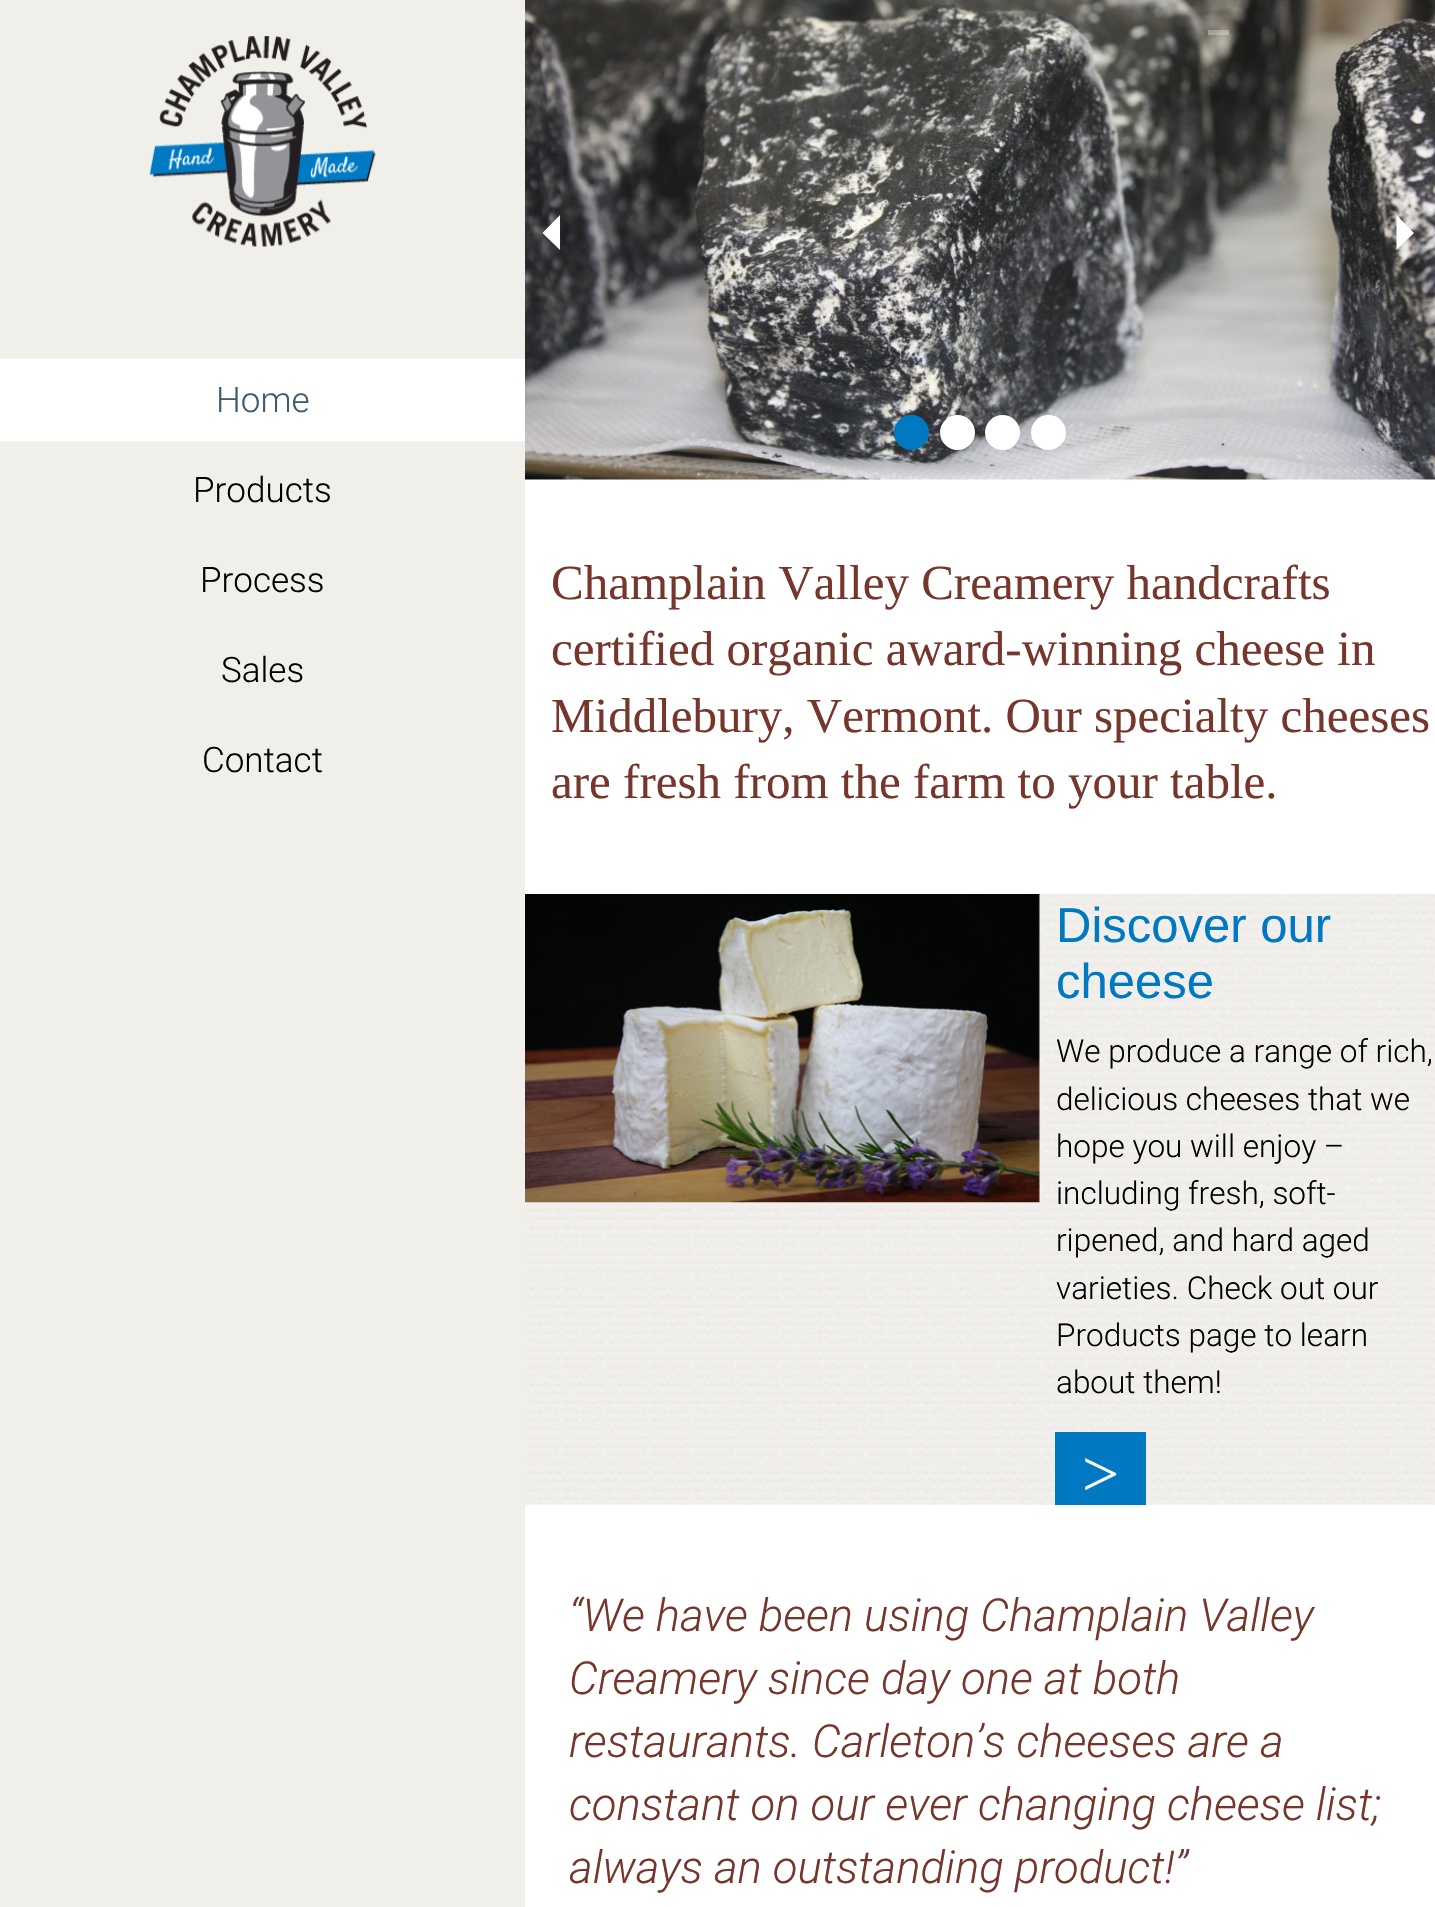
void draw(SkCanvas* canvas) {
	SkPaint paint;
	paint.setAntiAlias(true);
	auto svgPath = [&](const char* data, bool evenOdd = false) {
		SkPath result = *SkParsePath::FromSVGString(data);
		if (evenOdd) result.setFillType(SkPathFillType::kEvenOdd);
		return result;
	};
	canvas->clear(0xfff0efea);
	canvas->drawImageRect(SkImages::DeferredFromEncodedData(SkData::MakeFromFileName("img1.png")), SkRect::MakeXYWH(149, 35, 227, 213), SkSamplingOptions());
	paint.setColor(0xffffffff);
	canvas->drawRect(SkRect::MakeXYWH(0, 359, 525, 82), paint);
	SkFont f1(fontMgr->matchFamilyStyle("Roboto", SkFontStyle(300, SkFontStyle::kNormal_Width, SkFontStyle::kUpright_Slant)), 35);
	f1.setSubpixel(true);
	paint.setColor(0xff3e5c6e);
	canvas->drawString("Home", 216, 412, f1, paint);
	paint.setColor(0xff000000);
	canvas->drawString("Products", 193, 502, f1, paint);
	canvas->drawString("Process", 200, 592, f1, paint);
	canvas->drawString("Sales", 221, 682, f1, paint);
	canvas->drawString("Contact", 202, 772, f1, paint);
	paint.setColor(0xffffffff);
	canvas->drawRect(SkRect::MakeXYWH(525, 479, 910, 1428), paint);
	canvas->drawImageRect(SkImages::DeferredFromEncodedData(SkData::MakeFromFileName("img2.png")), SkRect::MakeXYWH(525, 0, 910, 480), SkSamplingOptions());
	paint.setColor(0x4dffffff);
	canvas->drawRect(SkRect::MakeXYWH(1208, 30, 21, 5), paint);
	paint.setColor(0xffffffff);
	canvas->drawPath(svgPath("M560 215V250L542.5 233Z"), paint);
	canvas->drawPath(svgPath("M1396.5 250V215L1414 233Z"), paint);
	paint.setColor(0xff0079c2);
	canvas->drawCircle(911.5, 432.5, 17.5, paint);
	paint.setColor(0xffffffff);
	canvas->drawCircle(957.5, 432.5, 17.5, paint);
	canvas->drawCircle(1002.5, 432.5, 17.5, paint);
	canvas->drawCircle(1048.5, 432.5, 17.5, paint);
	SkFont f2(fontMgr->matchFamilyStyle("Liberation Serif", SkFontStyle::Normal()), 49);
	f2.setSubpixel(true);
	paint.setColor(0xff77362b);
	canvas->drawString("Champlain Valley Creamery handcrafts", 551, 599, f2, paint);
	canvas->drawString("certified organic award-winning cheese in", 551, 665, f2, paint);
	canvas->drawString("Middlebury, Vermont. Our specialty cheeses", 551, 732, f2, paint);
	canvas->drawString("are fresh from the farm to your table.", 551, 798, f2, paint);
	canvas->drawImageRect(SkImages::DeferredFromEncodedData(SkData::MakeFromFileName("img3.png")), SkRect::MakeXYWH(525, 894, 910, 611), SkSamplingOptions());
	canvas->drawImageRect(SkImages::DeferredFromEncodedData(SkData::MakeFromFileName("img4.png")), SkRect::MakeXYWH(525, 894, 515, 309), SkSamplingOptions());
	SkFont f3(fontMgr->matchFamilyStyle("Liberation Sans", SkFontStyle::Normal()), 49);
	f3.setSubpixel(true);
	paint.setColor(0xff0079c1);
	canvas->drawString("Discover our", 1056, 942, f3, paint);
	canvas->drawString("cheese", 1056, 998, f3, paint);
	SkFont f4(fontMgr->matchFamilyStyle("Roboto", SkFontStyle(300, SkFontStyle::kNormal_Width, SkFontStyle::kUpright_Slant)), 31.5);
	f4.setSubpixel(true);
	paint.setColor(0xff000000);
	canvas->drawString("We produce a range of rich,", 1056, 1062, f4, paint);
	canvas->drawString("delicious cheeses that we", 1056, 1110, f4, paint);
	canvas->drawString("hope you will enjoy –", 1056, 1157, f4, paint);
	canvas->drawString("including fresh, soft-", 1056, 1204, f4, paint);
	canvas->drawString("ripened, and hard aged", 1056, 1251, f4, paint);
	canvas->drawString("varieties. Check out our", 1056, 1299, f4, paint);
	canvas->drawString("Products page to learn", 1056, 1346, f4, paint);
	canvas->drawString("about them!", 1056, 1393, f4, paint);
	paint.setColor(0xff0079c2);
	canvas->drawRect(SkRect::MakeXYWH(1055, 1432, 91, 73), paint);
	SkFont f5(fontMgr->matchFamilyStyle("Liberation Serif", SkFontStyle::Normal()), 66);
	f5.setSubpixel(true);
	paint.setColor(0xffffffff);
	canvas->drawString(">", 1082, 1496, f5, paint);
	SkFont f6(fontMgr->matchFamilyStyle("Roboto", SkFontStyle(300, SkFontStyle::kNormal_Width, SkFontStyle::kItalic_Slant)), 45.5);
	f6.setSubpixel(true);
	paint.setColor(0xff77362b);
	canvas->drawString("“We have been using Champlain Valley", 569, 1631, f6, paint);
	canvas->drawString("Creamery since day one at both", 569, 1694, f6, paint);
	canvas->drawString("restaurants. Carleton’s cheeses are a", 569, 1757, f6, paint);
	canvas->drawString("constant on our ever changing cheese list;", 569, 1820, f6, paint);
	canvas->drawString("always an outstanding product!”", 569, 1883, f6, paint);
}
